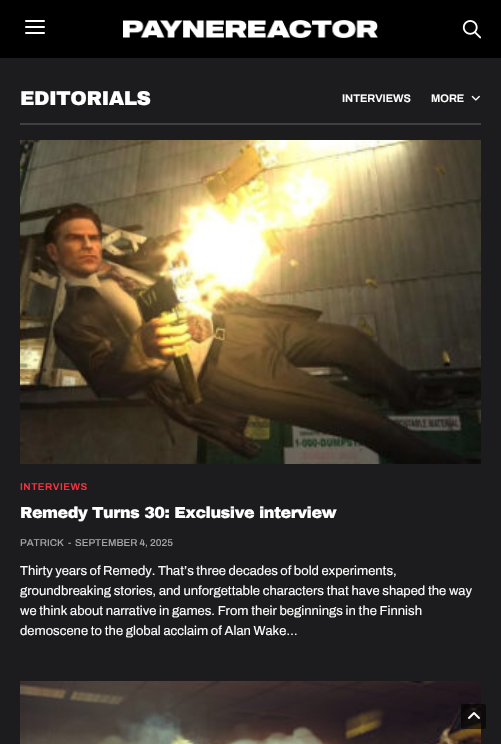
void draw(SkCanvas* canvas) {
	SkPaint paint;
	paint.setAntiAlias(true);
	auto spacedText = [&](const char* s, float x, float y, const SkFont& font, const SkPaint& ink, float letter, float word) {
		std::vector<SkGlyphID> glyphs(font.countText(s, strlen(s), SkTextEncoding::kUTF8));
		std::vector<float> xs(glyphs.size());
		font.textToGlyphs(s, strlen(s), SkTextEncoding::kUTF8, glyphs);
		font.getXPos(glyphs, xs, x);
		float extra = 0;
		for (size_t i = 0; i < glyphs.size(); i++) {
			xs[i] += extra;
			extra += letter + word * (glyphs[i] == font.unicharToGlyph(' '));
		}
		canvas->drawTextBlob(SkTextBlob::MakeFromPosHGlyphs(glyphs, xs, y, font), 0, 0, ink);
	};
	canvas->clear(0xff1c1c1e);
	paint.setColor(0xff000000);
	canvas->drawRect(SkRect::MakeXYWH(0, 0, 501, 58), paint);
	paint.setColor(0xffffffff);
	canvas->drawRoundRect(SkRect::MakeXYWH(25, 20, 20, 2), 1, 1, paint);
	canvas->drawRoundRect(SkRect::MakeXYWH(25, 26, 20, 2), 1, 1, paint);
	canvas->drawRoundRect(SkRect::MakeXYWH(25, 32, 20, 2), 1, 1, paint);
	canvas->drawImageRect(SkImages::DeferredFromEncodedData(SkData::MakeFromFileName("img1.png")), SkRect::MakeXYWH(123, 20, 255, 18), SkSamplingOptions());
	canvas->drawImageRect(SkImages::DeferredFromEncodedData(SkData::MakeFromFileName("img2.png")), SkRect::MakeXYWH(462, 20, 19, 19), SkSamplingOptions());
	paint.setColor(0xff404040);
	canvas->drawRect(SkRect::MakeXYWH(20, 123, 461, 2), paint);
	SkFont f1(fontMgr->matchFamilyStyle("Archivo Black", SkFontStyle(900, SkFontStyle::kNormal_Width, SkFontStyle::kUpright_Slant)), 20);
	f1.setSubpixel(true);
	paint.setColor(0xffffffff);
	spacedText("EDITORIALS", 20, 105, f1, paint, -0.5, 0);
	SkFont f2(fontMgr->matchFamilyStyle("Archivo", SkFontStyle(600, SkFontStyle::kNormal_Width, SkFontStyle::kUpright_Slant)), 11);
	f2.setSubpixel(true);
	canvas->drawString("INTERVIEWS", 342, 102, f2, paint);
	canvas->drawString("MORE", 431, 102, f2, paint);
	canvas->drawImageRect(SkImages::DeferredFromEncodedData(SkData::MakeFromFileName("img3.png")), SkRect::MakeXYWH(471, 95, 9, 6), SkSamplingOptions());
	canvas->drawImageRect(SkImages::DeferredFromEncodedData(SkData::MakeFromFileName("img4.png")), SkRect::MakeXYWH(20, 140, 461, 324), SkSamplingOptions());
	SkFont f3(fontMgr->matchFamilyStyle("Archivo", SkFontStyle(600, SkFontStyle::kNormal_Width, SkFontStyle::kUpright_Slant)), 10);
	f3.setSubpixel(true);
	paint.setColor(0xffef3340);
	spacedText("INTERVIEWS", 20, 490, f3, paint, 0.5, 0);
	SkFont f4(fontMgr->matchFamilyStyle("Archivo Black", SkFontStyle(900, SkFontStyle::kNormal_Width, SkFontStyle::kUpright_Slant)), 16);
	f4.setSubpixel(true);
	paint.setColor(0xffffffff);
	spacedText("Remedy Turns 30: Exclusive interview", 20, 518, f4, paint, -0.5, 0);
	SkFont f5(fontMgr->matchFamilyStyle("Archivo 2", SkFontStyle(600, SkFontStyle::kNormal_Width, SkFontStyle::kUpright_Slant)), 10);
	f5.setSubpixel(true);
	paint.setColor(0xffa4a4a5);
	canvas->drawString("PATRICK", 20, 546, f5, paint);
	canvas->drawString("-", 68, 546, f5, paint);
	canvas->drawString("SEPTEMBER 4, 2025", 75, 546, f5, paint);
	SkFont f6(fontMgr->matchFamilyStyle("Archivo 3", SkFontStyle(600, SkFontStyle::kNormal_Width, SkFontStyle::kUpright_Slant)), 13);
	f6.setSubpixel(true);
	paint.setColor(0xffffffff);
	spacedText("Thirty years of Remedy. That’s three decades of bold experiments,", 20, 575, f6, paint, 0, -0.25);
	canvas->drawString("groundbreaking stories, and unforgettable characters that have shaped the way", 20, 595, f6, paint);
	canvas->drawString("we think about narrative in games. From their beginnings in the Finnish", 20, 615, f6, paint);
	canvas->drawString("demoscene to the global acclaim of Alan Wake…", 20, 635, f6, paint);
	canvas->drawImageRect(SkImages::DeferredFromEncodedData(SkData::MakeFromFileName("img5.png")), SkRect::MakeXYWH(20, 681, 461, 63), SkSamplingOptions());
	paint.setColor(0x99000000);
	canvas->drawRoundRect(SkRect::MakeXYWH(461, 704, 25, 25), 2, 2, paint);
	canvas->drawImageRect(SkImages::DeferredFromEncodedData(SkData::MakeFromFileName("img6.png")), SkRect::MakeXYWH(468, 712, 12, 7), SkSamplingOptions());
}
